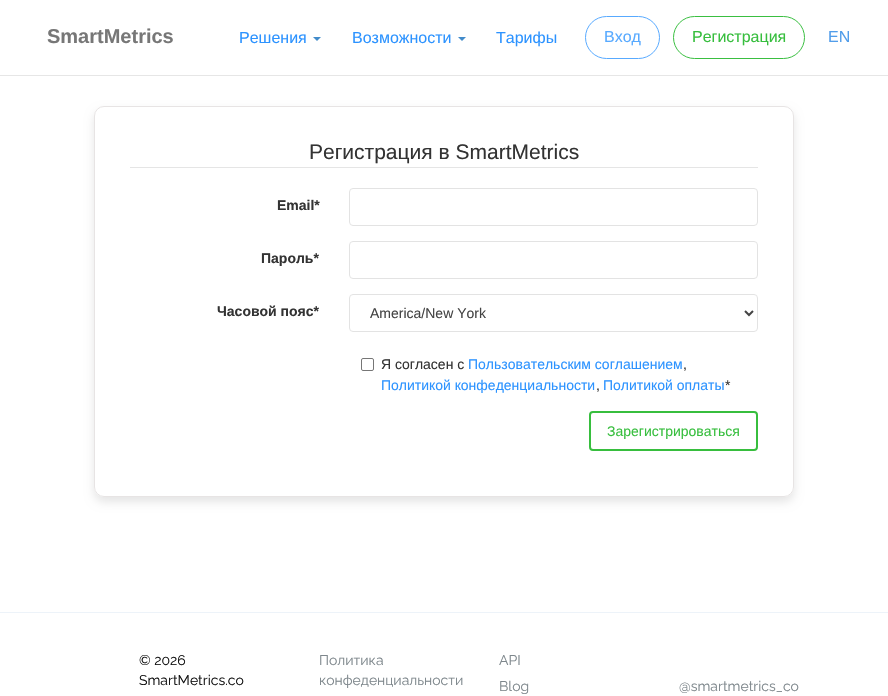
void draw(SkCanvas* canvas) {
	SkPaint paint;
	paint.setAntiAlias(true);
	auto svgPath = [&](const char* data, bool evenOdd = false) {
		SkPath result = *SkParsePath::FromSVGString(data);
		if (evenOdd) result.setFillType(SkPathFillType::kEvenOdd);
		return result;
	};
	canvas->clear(0xffffffff);
	paint.setColor(0xffe6e6e6);
	canvas->drawRect(SkRect::MakeXYWH(0, 75, 888, 1), paint);
	SkFont f1(fontMgr->matchFamilyStyle("Liberation Sans", SkFontStyle::Bold()), 20);
	f1.setSubpixel(true);
	paint.setColor(0xff777777);
	canvas->drawString("SmartMetrics", 47, 43, f1, paint);
	SkFont f2(fontMgr->matchFamilyStyle("Liberation Sans", SkFontStyle::Normal()), 16);
	f2.setSubpixel(true);
	paint.setColor(0xff2c93ff);
	canvas->drawString("Решения", 239, 43, f2, paint);
	paint.setColor(0xff428bca);
	canvas->drawPath(svgPath("M313 37H321L317 41Z"), paint);
	paint.setColor(0xff2c93ff);
	canvas->drawString("Возможности", 352, 43, f2, paint);
	paint.setColor(0xff428bca);
	canvas->drawPath(svgPath("M458 37H466L462 41Z"), paint);
	paint.setColor(0xff2c93ff);
	canvas->drawString("Тарифы", 496, 43, f2, paint);
	paint.setStroke(true);
	paint.setStrokeWidth(1);
	paint.setColor(0xff58aaff);
	canvas->drawRoundRect(SkRect::MakeXYWH(585.5, 16.5, 74, 42), 21, 21, paint);
	paint.setStroke(false);
	canvas->drawString("Вход", 604, 42, f2, paint);
	paint.setStroke(true);
	paint.setColor(0xff3abf41);
	canvas->drawRoundRect(SkRect::MakeXYWH(673.5, 16.5, 131, 42), 21, 21, paint);
	paint.setStroke(false);
	paint.setColor(0xff37be3e);
	canvas->drawString("Регистрация", 692, 42, f2, paint);
	paint.setColor(0xff519dea);
	canvas->drawString("EN", 828, 42, f2, paint);
	canvas->save();
	canvas->clipPath(svgPath("M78 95H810V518H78ZM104 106H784C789.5 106 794 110.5 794 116V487C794 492.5 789.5 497 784 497H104C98.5 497 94 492.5 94 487V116C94 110.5 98.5 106 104 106Z", true), true);
	paint.setColor(0x1a000000);
	paint.setMaskFilter(SkMaskFilter::MakeBlur(kNormal_SkBlurStyle, 5));
	canvas->drawRoundRect(SkRect::MakeXYWH(94, 111, 700, 391), 10, 10, paint);
	paint.setMaskFilter(nullptr);
	canvas->restore();
	paint.setStroke(true);
	paint.setColor(0xffe7e4e4);
	canvas->drawRoundRect(SkRect::MakeXYWH(94.5, 106.5, 699, 390), 9.5, 9.5, paint);
	paint.setStroke(false);
	paint.setColor(0xffe5e5e5);
	canvas->drawRect(SkRect::MakeXYWH(130, 167, 628, 1), paint);
	SkFont f3(fontMgr->matchFamilyStyle("Liberation Sans", SkFontStyle::Normal()), 21);
	f3.setSubpixel(true);
	paint.setColor(0xff333333);
	canvas->drawString("Регистрация в SmartMetrics", 309, 159, f3, paint);
	SkFont f4(fontMgr->matchFamilyStyle("Liberation Sans", SkFontStyle::Bold()), 14);
	f4.setSubpixel(true);
	canvas->drawString("Email*", 277, 210, f4, paint);
	paint.setStroke(true);
	paint.setColor(0xffe3e3e3);
	canvas->drawRoundRect(SkRect::MakeXYWH(349.5, 188.5, 408, 37), 3.5, 3.5, paint);
	paint.setStroke(false);
	paint.setColor(0xff333333);
	canvas->drawString("Пароль*", 261, 263, f4, paint);
	paint.setStroke(true);
	paint.setColor(0xffe3e3e3);
	canvas->drawRoundRect(SkRect::MakeXYWH(349.5, 241.5, 408, 37), 3.5, 3.5, paint);
	paint.setStroke(false);
	paint.setColor(0xff333333);
	canvas->drawString("Часовой пояс*", 217, 316, f4, paint);
	paint.setStroke(true);
	paint.setColor(0xffe3e3e3);
	canvas->drawRoundRect(SkRect::MakeXYWH(349.5, 294.5, 408, 37), 3.5, 3.5, paint);
	paint.setStrokeWidth(2);
	paint.setColor(0xff444444);
	canvas->drawPath(svgPath("M745 311L749 315L753 311"), paint);
	SkFont f5(fontMgr->matchFamilyStyle("Liberation Sans", SkFontStyle::Normal()), 14);
	f5.setSubpixel(true);
	paint.setStroke(false);
	canvas->drawString("America/New York", 370, 318, f5, paint);
	paint.setStroke(true);
	paint.setStrokeWidth(1);
	paint.setColor(0xff767676);
	canvas->drawRoundRect(SkRect::MakeXYWH(361.5, 358.5, 12, 12), 1.5, 1.5, paint);
	paint.setStroke(false);
	paint.setColor(0xff333333);
	canvas->drawString("Я согласен с", 381, 369, f5, paint);
	paint.setColor(0xff2c93ff);
	canvas->drawString("Пользовательским соглашением", 468, 369, f5, paint);
	paint.setColor(0xff333333);
	canvas->drawString(",", 683, 369, f5, paint);
	paint.setColor(0xff2c93ff);
	canvas->drawString("Политикой конфеденциальности", 381, 390, f5, paint);
	canvas->drawString("Политикой оплаты", 603, 390, f5, paint);
	paint.setColor(0xff333333);
	canvas->drawString("*", 725, 390, f5, paint);
	canvas->drawString(",", 596, 390, f5, paint);
	paint.setStroke(true);
	paint.setStrokeWidth(2);
	paint.setColor(0xff37be3e);
	canvas->drawRoundRect(SkRect::MakeXYWH(590, 412, 167, 38), 3, 3, paint);
	paint.setStroke(false);
	canvas->drawString("Зарегистрироваться", 607, 436, f5, paint);
	paint.setColor(0xffedf3f9);
	canvas->drawRect(SkRect::MakeXYWH(0, 612, 888, 1), paint);
	SkFont f6(fontMgr->matchFamilyStyle("Raleway", SkFontStyle::Normal()), 14);
	f6.setSubpixel(true);
	paint.setColor(0xff111111);
	canvas->drawString("© 2026", 139, 665, f6, paint);
	canvas->drawString("SmartMetrics.co", 139, 685, f6, paint);
	paint.setColor(0xff7e878c);
	canvas->drawString("Политика", 319, 665, f6, paint);
	canvas->drawString("конфеденциальности", 319, 685, f6, paint);
	canvas->drawString("API", 499, 665, f6, paint);
	canvas->drawString("Blog", 499, 691, f6, paint);
	canvas->drawString("@smartmetrics_co", 679, 691, f6, paint);
}
